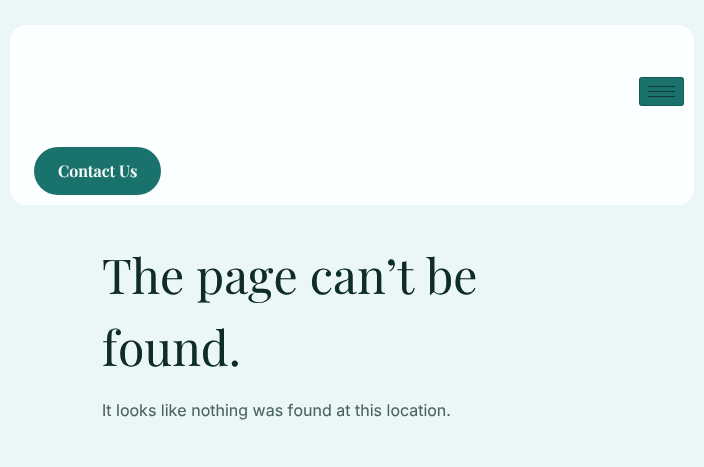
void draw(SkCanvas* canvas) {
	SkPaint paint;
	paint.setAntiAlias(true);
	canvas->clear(0xffebf6f6);
	paint.setColor(0xfffcffff);
	canvas->drawRoundRect(SkRect::MakeXYWH(10, 25, 684, 180), 16, 16, paint);
	paint.setColor(0xff19726c);
	canvas->drawRoundRect(SkRect::MakeXYWH(639, 77, 45, 29), 3, 3, paint);
	paint.setStroke(true);
	paint.setStrokeWidth(1);
	paint.setColor(0x33000000);
	canvas->drawRoundRect(SkRect::MakeXYWH(639.5, 77.5, 44, 28), 2.5, 2.5, paint);
	paint.setStroke(false);
	paint.setColor(0xff0d3936);
	canvas->drawRect(SkRect::MakeXYWH(648, 86, 27, 1), paint);
	canvas->drawRect(SkRect::MakeXYWH(648, 91, 27, 1), paint);
	canvas->drawRect(SkRect::MakeXYWH(648, 96, 27, 1), paint);
	paint.setColor(0xff19726c);
	canvas->drawRoundRect(SkRect::MakeXYWH(34, 147, 127, 48), 24, 24, paint);
	SkFont f1(fontMgr->matchFamilyStyle("Playfair Display", SkFontStyle(600, SkFontStyle::kNormal_Width, SkFontStyle::kUpright_Slant)), 16);
	f1.setSubpixel(true);
	paint.setColor(0xfffcffff);
	canvas->drawString("Contact Us", 58, 177, f1, paint);
	SkFont f2(fontMgr->matchFamilyStyle("Playfair Display", SkFontStyle::Normal()), 48);
	f2.setSubpixel(true);
	paint.setColor(0xff0e2c2a);
	canvas->drawString("The page can’t be", 102, 294, f2, paint);
	canvas->drawString("found.", 102, 366, f2, paint);
	SkFont f3(fontMgr->matchFamilyStyle("Inter", SkFontStyle::Normal()), 16);
	f3.setSubpixel(true);
	paint.setColor(0xff4a6361);
	canvas->drawString("It looks like nothing was found at this location.", 102, 416, f3, paint);
}
